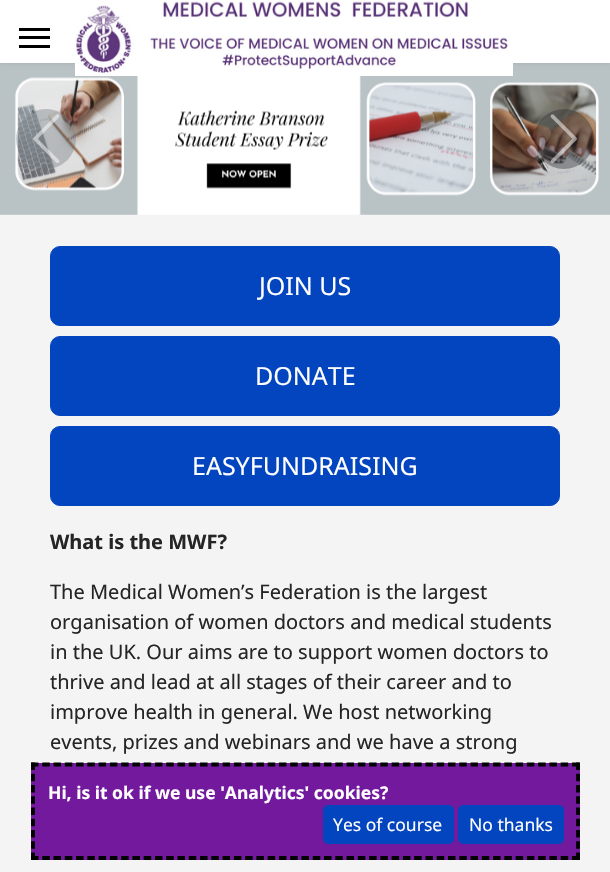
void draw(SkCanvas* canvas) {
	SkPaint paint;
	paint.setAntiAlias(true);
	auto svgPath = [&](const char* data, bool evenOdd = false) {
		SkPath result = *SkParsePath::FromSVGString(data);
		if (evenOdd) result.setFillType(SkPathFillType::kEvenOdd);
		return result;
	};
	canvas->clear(0xfff4f4f4);
	canvas->drawImageRect(SkImages::DeferredFromEncodedData(SkData::MakeFromFileName("img2.png")), SkRect::MakeXYWH(0, 63, 610, 152), SkSamplingOptions());
	paint.setColor(0x1a000000);
	paint.setMaskFilter(SkMaskFilter::MakeBlur(kNormal_SkBlurStyle, 2.5));
	canvas->drawRect(SkRect::MakeXYWH(0, 0, 610, 63), paint);
	paint.setMaskFilter(nullptr);
	paint.setColor(0xffffffff);
	canvas->drawRect(SkRect::MakeXYWH(0, 0, 610, 63), paint);
	paint.setColor(0xff000000);
	canvas->drawRect(SkRect::MakeXYWH(19, 28, 31, 3), paint);
	canvas->drawRect(SkRect::MakeXYWH(19, 36, 31, 3), paint);
	canvas->drawRect(SkRect::MakeXYWH(19, 45, 31, 3), paint);
	canvas->drawImageRect(SkImages::DeferredFromEncodedData(SkData::MakeFromFileName("img1.png")), SkRect::MakeXYWH(75, 1, 438, 75), SkSamplingOptions());
	paint.setColor(0x616c757d);
	canvas->drawCircle(46, 139, 30, paint);
	canvas->drawImageRect(SkImages::DeferredFromEncodedData(SkData::MakeFromFileName("img3.png")), SkRect::MakeXYWH(33, 114, 27, 49), SkSamplingOptions());
	paint.setColor(0x61212529);
	canvas->drawCircle(564, 139, 30, paint);
	canvas->drawImageRect(SkImages::DeferredFromEncodedData(SkData::MakeFromFileName("img4.png")), SkRect::MakeXYWH(550, 114, 27, 50), SkSamplingOptions());
	paint.setColor(0xff0345bf);
	canvas->drawRoundRect(SkRect::MakeXYWH(50.5, 246.5, 509, 79), 9.5, 9.5, paint);
	paint.setStroke(true);
	paint.setStrokeWidth(1);
	canvas->drawRoundRect(SkRect::MakeXYWH(50.5, 246.5, 509, 79), 9.5, 9.5, paint);
	SkFont f1(fontMgr->matchFamilyStyle("Noto Sans", SkFontStyle::Normal()), 25);
	f1.setSubpixel(true);
	paint.setStroke(false);
	paint.setColor(0xffffffff);
	canvas->drawString("JOIN US", 259, 295, f1, paint);
	paint.setColor(0xff0345bf);
	canvas->drawRoundRect(SkRect::MakeXYWH(50.5, 336.5, 509, 79), 9.5, 9.5, paint);
	paint.setStroke(true);
	canvas->drawRoundRect(SkRect::MakeXYWH(50.5, 336.5, 509, 79), 9.5, 9.5, paint);
	paint.setStroke(false);
	paint.setColor(0xffffffff);
	canvas->drawString("DONATE", 255, 385, f1, paint);
	paint.setColor(0xff0345bf);
	canvas->drawRoundRect(SkRect::MakeXYWH(50.5, 426.5, 509, 79), 9.5, 9.5, paint);
	paint.setStroke(true);
	canvas->drawRoundRect(SkRect::MakeXYWH(50.5, 426.5, 509, 79), 9.5, 9.5, paint);
	paint.setStroke(false);
	paint.setColor(0xffffffff);
	canvas->drawString("EASYFUNDRAISING", 192, 475, f1, paint);
	SkFont f2(fontMgr->matchFamilyStyle("Noto Sans", SkFontStyle::Bold()), 20);
	f2.setSubpixel(true);
	paint.setColor(0xff252525);
	canvas->drawString("What is the MWF?", 50, 549, f2, paint);
	SkFont f3(fontMgr->matchFamilyStyle("Noto Sans", SkFontStyle::Normal()), 20);
	f3.setSubpixel(true);
	canvas->drawString("The Medical Women’s Federation is the largest", 50, 599, f3, paint);
	canvas->drawString("organisation of women doctors and medical students", 50, 629, f3, paint);
	canvas->drawString("in the UK. Our aims are to support women doctors to", 50, 659, f3, paint);
	canvas->drawString("thrive and lead at all stages of their career and to", 50, 689, f3, paint);
	canvas->drawString("improve health in general. We host networking", 50, 719, f3, paint);
	canvas->drawString("events, prizes and webinars and we have a strong", 50, 749, f3, paint);
	paint.setColor(0xff72199e);
	canvas->drawRect(SkRect::MakeXYWH(31, 763, 549, 97), paint);
	paint.setStroke(true);
	paint.setStrokeWidth(3.8);
	paint.setColor(0xff000000);
	paint.setPathEffect(SkDashPathEffect::Make({{7.5f, 3.77f}}, 0));
	canvas->drawPath(svgPath("M31 764.5H580"), paint);
	paint.setPathEffect(nullptr);
	paint.setPathEffect(SkDashPathEffect::Make({{7.5f, 3.75f}}, 0));
	canvas->drawPath(svgPath("M578 762.5V860"), paint);
	paint.setPathEffect(nullptr);
	paint.setPathEffect(SkDashPathEffect::Make({{7.5f, 3.77f}}, 0));
	canvas->drawPath(svgPath("M31 858H580"), paint);
	paint.setPathEffect(nullptr);
	paint.setPathEffect(SkDashPathEffect::Make({{7.5f, 3.75f}}, 0));
	canvas->drawPath(svgPath("M33 762.5V860"), paint);
	paint.setPathEffect(nullptr);
	SkFont f4(fontMgr->matchFamilyStyle("Noto Sans", SkFontStyle::Bold()), 17.5);
	f4.setSubpixel(true);
	paint.setStroke(false);
	paint.setColor(0xffffffff);
	canvas->drawString("Hi, is it ok if we use 'Analytics' cookies?", 48, 799, f4, paint);
	paint.setColor(0xff0345bf);
	canvas->drawRoundRect(SkRect::MakeXYWH(323.5, 805.5, 130, 38), 4.5, 4.5, paint);
	paint.setStroke(true);
	paint.setStrokeWidth(1);
	canvas->drawRoundRect(SkRect::MakeXYWH(323.5, 805.5, 130, 38), 4.5, 4.5, paint);
	SkFont f5(fontMgr->matchFamilyStyle("Noto Sans", SkFontStyle::Normal()), 17.5);
	f5.setSubpixel(true);
	paint.setStroke(false);
	paint.setColor(0xffffffff);
	canvas->drawString("Yes of course", 333, 831, f5, paint);
	paint.setColor(0xff0345bf);
	canvas->drawRoundRect(SkRect::MakeXYWH(458.5, 805.5, 105, 38), 4.5, 4.5, paint);
	paint.setStroke(true);
	canvas->drawRoundRect(SkRect::MakeXYWH(458.5, 805.5, 105, 38), 4.5, 4.5, paint);
	paint.setStroke(false);
	paint.setColor(0xffffffff);
	canvas->drawString("No thanks", 469, 831, f5, paint);
}
